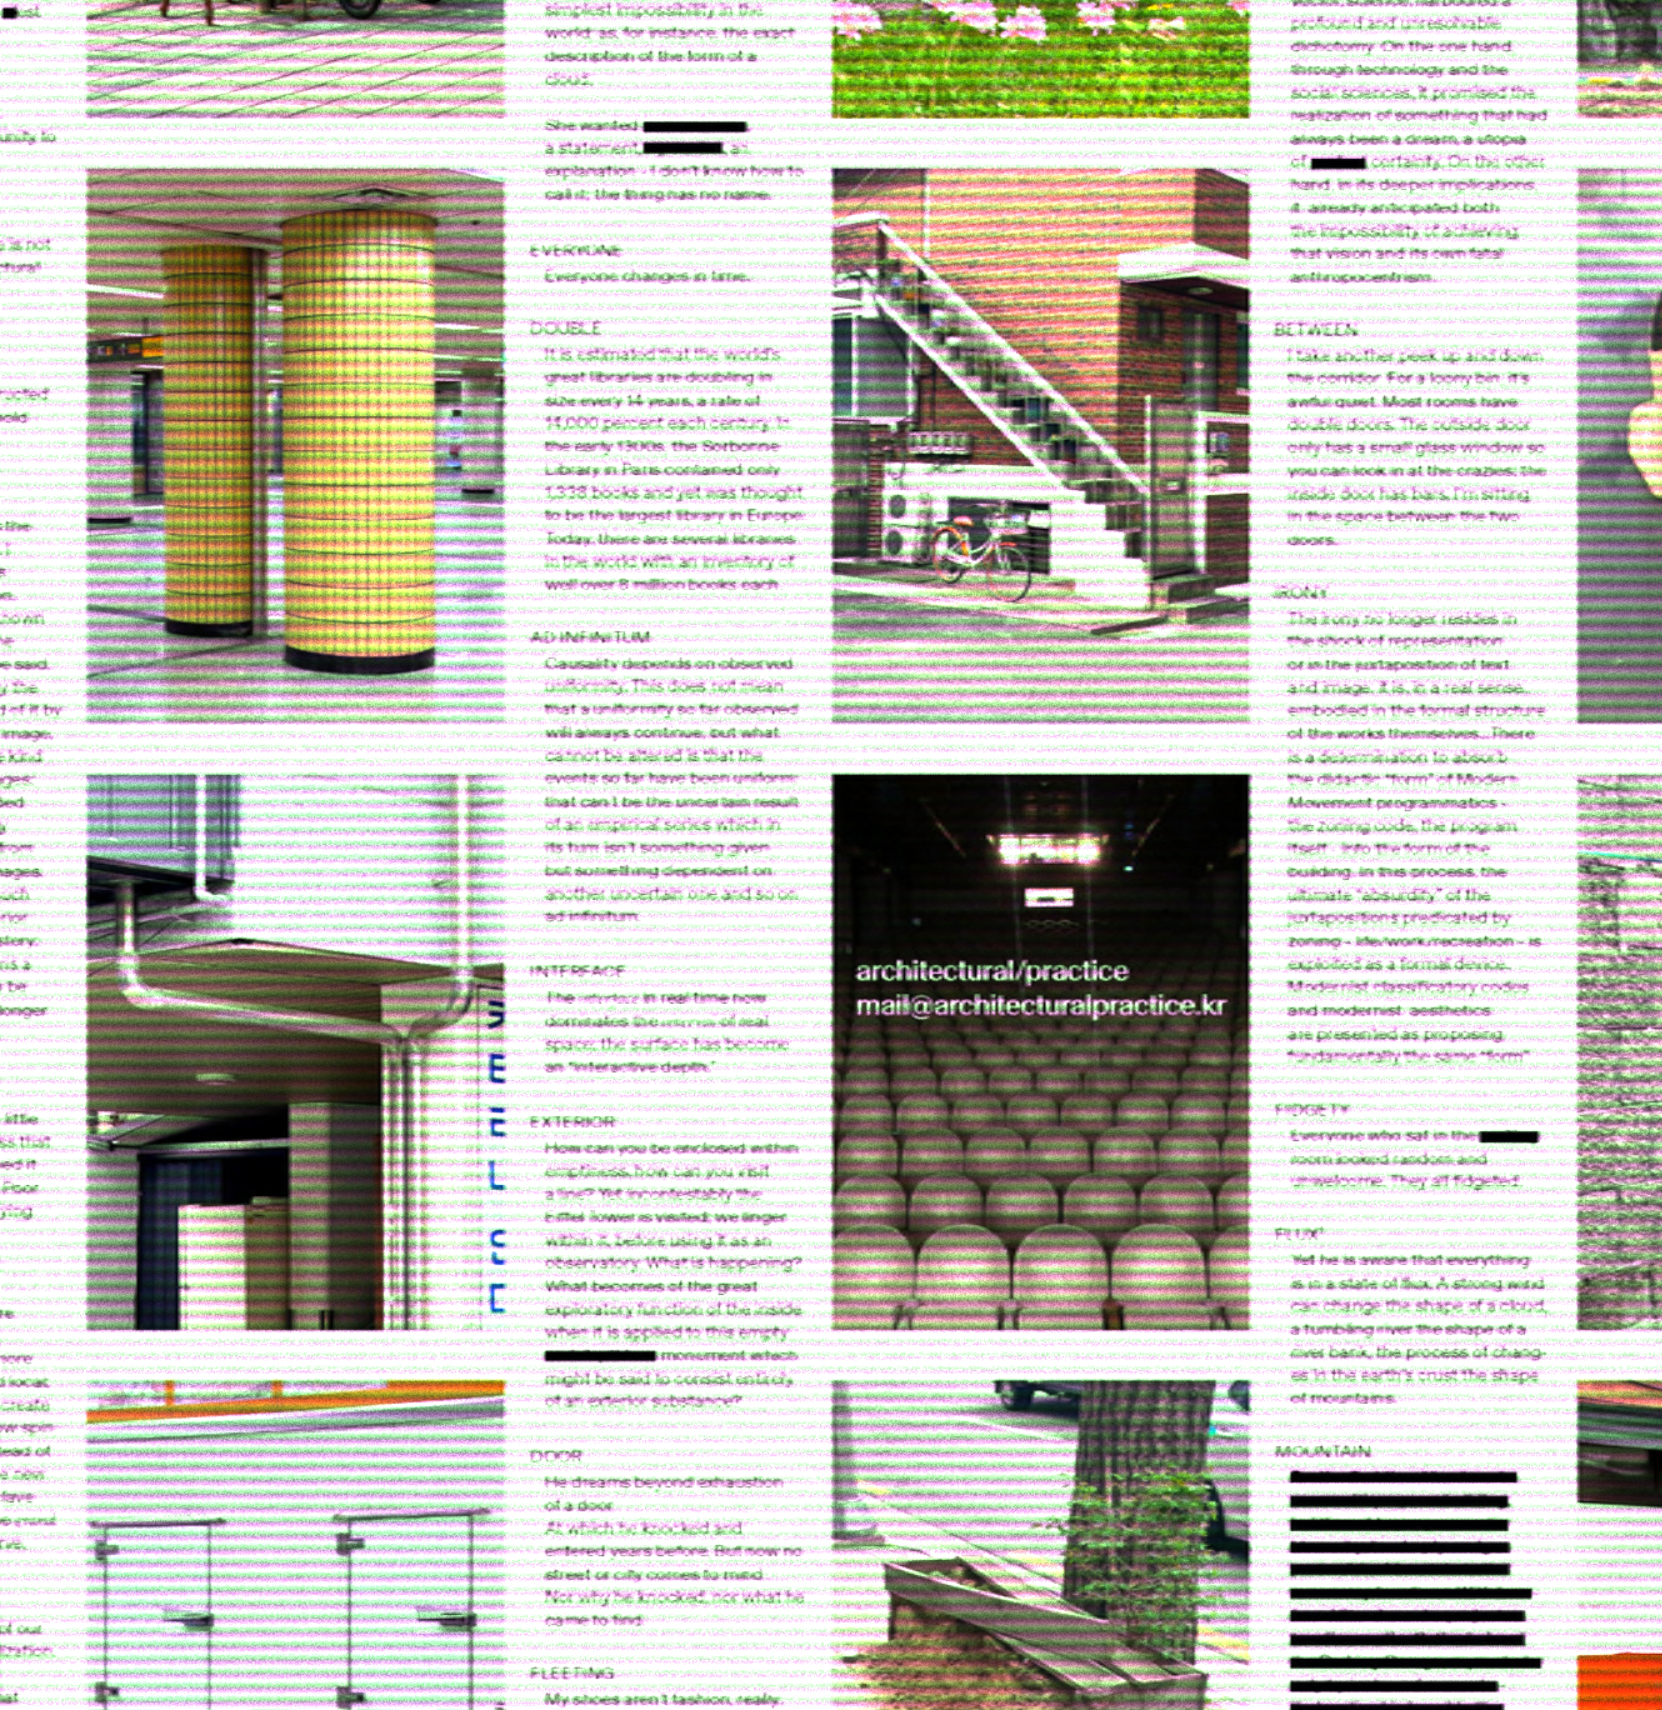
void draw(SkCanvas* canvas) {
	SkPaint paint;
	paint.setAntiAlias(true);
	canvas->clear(0xffffffff);
	canvas->drawImageRect(SkImages::DeferredFromEncodedData(SkData::MakeFromFileName("img1.png")), SkRect::MakeXYWH(0, 0, 1662, 1710), SkSamplingOptions());
}
